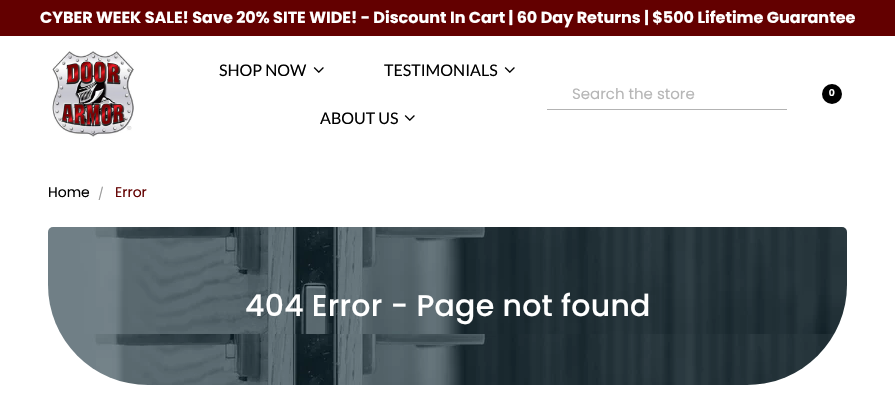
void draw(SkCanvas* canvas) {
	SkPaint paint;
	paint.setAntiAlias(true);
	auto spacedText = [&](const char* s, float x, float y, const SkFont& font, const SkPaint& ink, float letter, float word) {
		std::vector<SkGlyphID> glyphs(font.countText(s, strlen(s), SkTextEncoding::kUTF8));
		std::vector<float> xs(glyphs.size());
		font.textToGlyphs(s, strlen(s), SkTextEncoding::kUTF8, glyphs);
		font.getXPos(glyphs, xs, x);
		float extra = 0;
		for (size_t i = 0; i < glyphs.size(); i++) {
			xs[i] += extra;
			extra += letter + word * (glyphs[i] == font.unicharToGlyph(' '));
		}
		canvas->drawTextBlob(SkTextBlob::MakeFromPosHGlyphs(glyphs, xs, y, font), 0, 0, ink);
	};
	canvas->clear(0xffffffff);
	paint.setColor(0xff630000);
	canvas->drawRect(SkRect::MakeXYWH(0, 0, 895, 36), paint);
	SkFont f1(fontMgr->matchFamilyStyle("Poppins", SkFontStyle::Bold()), 16);
	f1.setSubpixel(true);
	paint.setColor(0xffffffff);
	canvas->drawString("CYBER WEEK SALE! Save 20% SITE WIDE! - Discount In Cart | 60 Day Returns | $500 Lifetime Guarantee", 40, 23, f1, paint);
	canvas->drawImageRect(SkImages::DeferredFromEncodedData(SkData::MakeFromFileName("img1.png")), SkRect::MakeXYWH(52, 51, 82, 86), SkSamplingOptions());
	SkFont f2(fontMgr->matchFamilyStyle("Lato", SkFontStyle::Normal()), 16);
	f2.setSubpixel(true);
	paint.setColor(0xff000000);
	canvas->drawString("SHOP NOW", 219, 76, f2, paint);
	canvas->drawImageRect(SkImages::DeferredFromEncodedData(SkData::MakeFromFileName("img2.png")), SkRect::MakeXYWH(313, 67, 11, 6), SkSamplingOptions());
	canvas->drawString("TESTIMONIALS", 384, 76, f2, paint);
	canvas->drawImageRect(SkImages::DeferredFromEncodedData(SkData::MakeFromFileName("img2.png")), SkRect::MakeXYWH(504, 67, 11, 6), SkSamplingOptions());
	canvas->drawString("ABOUT US", 320, 124, f2, paint);
	canvas->drawImageRect(SkImages::DeferredFromEncodedData(SkData::MakeFromFileName("img2.png")), SkRect::MakeXYWH(404, 115, 11, 6), SkSamplingOptions());
	paint.setColor(0xffb3b3b3);
	canvas->drawRect(SkRect::MakeXYWH(547, 109, 240, 1), paint);
	SkFont f3(fontMgr->matchFamilyStyle("Poppins", SkFontStyle::Normal()), 15);
	f3.setSubpixel(true);
	paint.setColor(0xffb6b6b6);
	canvas->drawString("Search the store", 572, 99, f3, paint);
	paint.setColor(0xff000000);
	canvas->drawCircle(832, 94, 10, paint);
	SkFont f4(fontMgr->matchFamilyStyle("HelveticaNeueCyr", SkFontStyle::Bold()), 10);
	f4.setSubpixel(true);
	paint.setColor(0xffffffff);
	spacedText("0", 829, 96, f4, paint, 1, 0);
	SkFont f5(fontMgr->matchFamilyStyle("Poppins", SkFontStyle::Normal()), 14);
	f5.setSubpixel(true);
	paint.setColor(0xff000000);
	canvas->drawString("Home", 48, 197, f5, paint);
	SkFont f6(fontMgr->matchFamilyStyle("Poppins", SkFontStyle::Normal()), 12);
	f6.setSubpixel(true);
	paint.setColor(0xff9a9a9a);
	canvas->drawString("/", 98, 198, f6, paint);
	paint.setColor(0xff630000);
	canvas->drawString("Error", 115, 197, f5, paint);
	canvas->drawImageRect(SkImages::DeferredFromEncodedData(SkData::MakeFromFileName("img3.png")), SkRect::MakeXYWH(48, 227, 799, 158), SkSamplingOptions());
	SkFont f7(fontMgr->matchFamilyStyle("Poppins", SkFontStyle(500, SkFontStyle::kNormal_Width, SkFontStyle::kUpright_Slant)), 30);
	f7.setSubpixel(true);
	paint.setColor(0xffffffff);
	spacedText("404 Error - Page not found", 245, 316, f7, paint, 0.25, 0);
}
